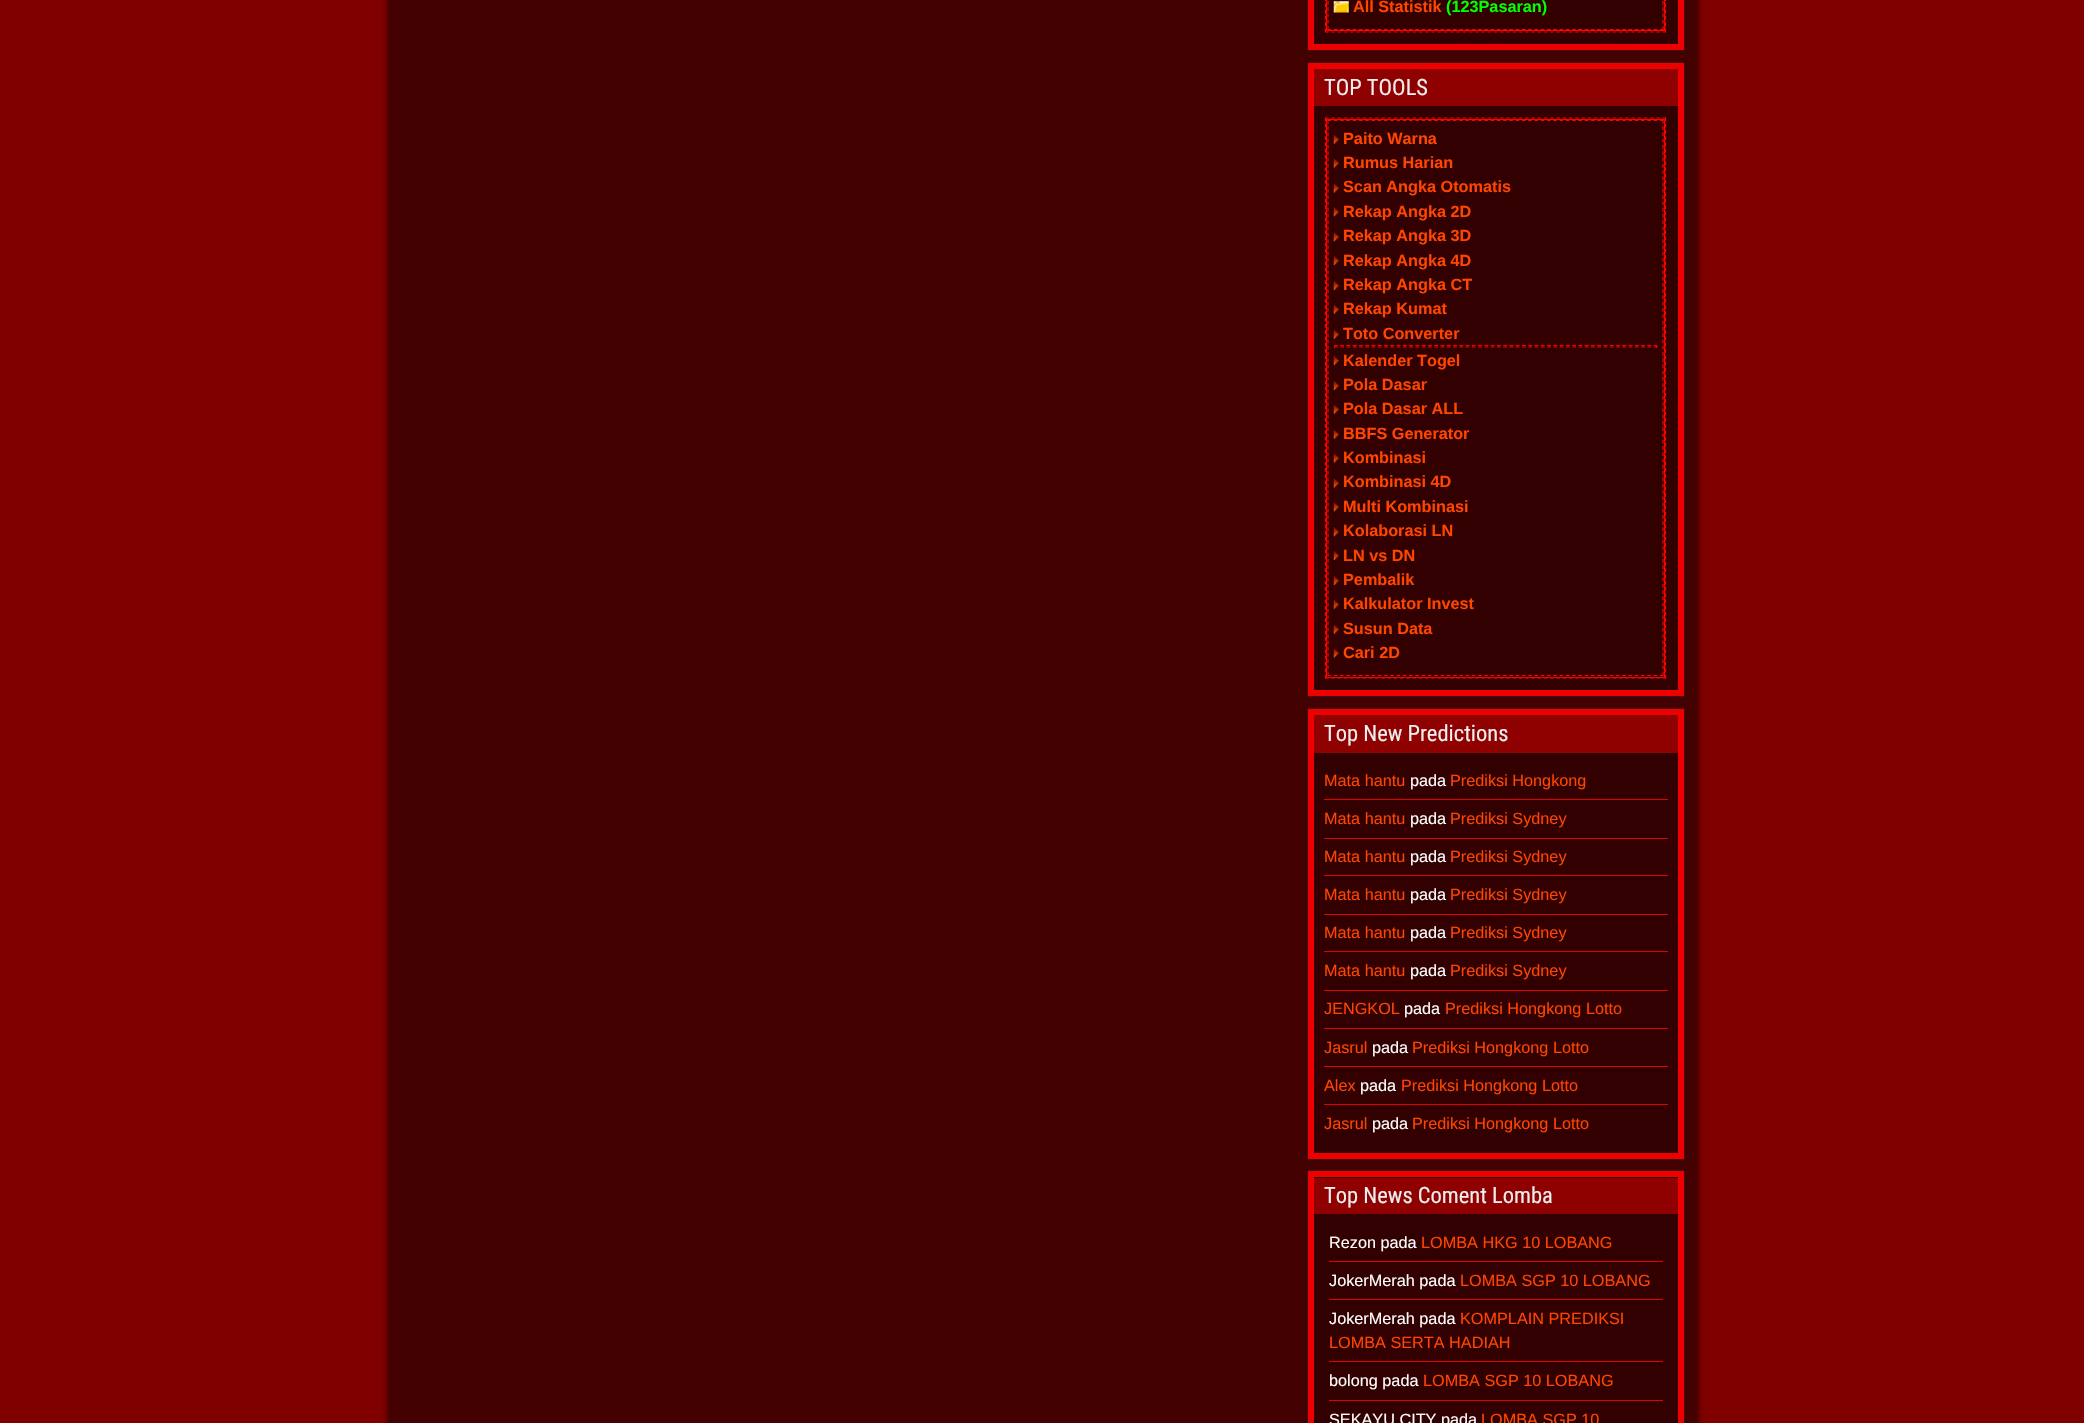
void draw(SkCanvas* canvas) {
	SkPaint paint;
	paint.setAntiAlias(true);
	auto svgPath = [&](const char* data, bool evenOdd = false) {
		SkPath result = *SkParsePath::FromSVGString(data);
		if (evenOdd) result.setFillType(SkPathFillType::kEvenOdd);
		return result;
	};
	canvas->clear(0xff800000);
	paint.setColor(0xff000000);
	paint.setMaskFilter(SkMaskFilter::MakeBlur(kNormal_SkBlurStyle, 4));
	canvas->drawRect(SkRect::MakeXYWH(390, -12, 1306, 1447), paint);
	paint.setMaskFilter(nullptr);
	paint.setColor(0xff430101);
	canvas->drawRect(SkRect::MakeXYWH(390, 0, 1306, 1423), paint);
	paint.setColor(0xff333333);
	paint.setMaskFilter(SkMaskFilter::MakeBlur(kNormal_SkBlurStyle, 1));
	canvas->drawRect(SkRect::MakeXYWH(1308, -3, 376, 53), paint);
	paint.setMaskFilter(nullptr);
	paint.setColor(0xff320000);
	canvas->drawRect(SkRect::MakeXYWH(1311, -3, 370, 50), paint);
	paint.setStroke(true);
	paint.setStrokeWidth(6);
	paint.setColor(0xffee0000);
	canvas->drawRect(SkRect::MakeXYWH(1311, -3, 370, 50), paint);
	paint.setStrokeWidth(1.2);
	paint.setColor(0xffff0000);
	paint.setPathEffect(SkDashPathEffect::Make({{3.75f, 2.5f}}, 0));
	canvas->drawPath(svgPath("M1665.5-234V32.5"), paint);
	paint.setPathEffect(nullptr);
	paint.setPathEffect(SkDashPathEffect::Make({{3.75f, 2.5f}}, 0));
	canvas->drawPath(svgPath("M1325 32H1666"), paint);
	paint.setPathEffect(nullptr);
	paint.setPathEffect(SkDashPathEffect::Make({{3.75f, 2.5f}}, 0));
	canvas->drawPath(svgPath("M1325.5-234V32.5"), paint);
	paint.setPathEffect(nullptr);
	paint.setStrokeWidth(1);
	canvas->drawRect(SkRect::MakeXYWH(1326.5, -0.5, 338, 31), paint);
	paint.setStrokeWidth(1.2);
	paint.setPathEffect(SkDashPathEffect::Make({{3.75f, 2.52f}}, 0));
	canvas->drawPath(svgPath("M1663-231V30"), paint);
	paint.setPathEffect(nullptr);
	paint.setPathEffect(SkDashPathEffect::Make({{3.75f, 2.52f}}, 0));
	canvas->drawPath(svgPath("M1327.5 29.5H1664"), paint);
	paint.setPathEffect(nullptr);
	paint.setPathEffect(SkDashPathEffect::Make({{3.75f, 2.52f}}, 0));
	canvas->drawPath(svgPath("M1328-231V30"), paint);
	paint.setPathEffect(nullptr);
	canvas->drawImageRect(SkImages::DeferredFromEncodedData(SkData::MakeFromFileName("img1.png")), SkRect::MakeXYWH(1333, 1, 16, 12), SkSamplingOptions());
	SkFont f1(fontMgr->matchFamilyStyle("Liberation Sans", SkFontStyle::Bold()), 16.25);
	f1.setSubpixel(true);
	paint.setStroke(false);
	paint.setColor(0xffff4500);
	canvas->drawString("All Statistik", 1353, 12, f1, paint);
	paint.setColor(0xff00ff00);
	canvas->drawString("(123Pasaran)", 1446, 12, f1, paint);
	paint.setColor(0xff333333);
	paint.setMaskFilter(SkMaskFilter::MakeBlur(kNormal_SkBlurStyle, 1));
	canvas->drawRect(SkRect::MakeXYWH(1308, 63, 376, 633), paint);
	paint.setMaskFilter(nullptr);
	paint.setColor(0xff320000);
	canvas->drawRect(SkRect::MakeXYWH(1314, 106, 364, 584), paint);
	paint.setStroke(true);
	paint.setStrokeWidth(6);
	paint.setColor(0xffee0000);
	canvas->drawRect(SkRect::MakeXYWH(1311, 66, 370, 627), paint);
	paint.setStroke(false);
	paint.setColor(0xff8f0101);
	canvas->drawRect(SkRect::MakeXYWH(1314, 69, 364, 37), paint);
	SkFont f2(fontMgr->matchFamilyStyle("Roboto Condensed", SkFontStyle::Normal()), 22.5);
	f2.setSubpixel(true);
	paint.setColor(0xffeeeeee);
	canvas->drawString("TOP TOOLS", 1324, 95, f2, paint);
	paint.setStroke(true);
	paint.setStrokeWidth(1.2);
	paint.setColor(0xffff0000);
	paint.setPathEffect(SkDashPathEffect::Make({{3.75f, 2.5f}}, 0));
	canvas->drawPath(svgPath("M1325 118H1666"), paint);
	paint.setPathEffect(nullptr);
	paint.setPathEffect(SkDashPathEffect::Make({{3.75f, 2.51f}}, 0));
	canvas->drawPath(svgPath("M1665.5 117.5V679"), paint);
	paint.setPathEffect(nullptr);
	paint.setPathEffect(SkDashPathEffect::Make({{3.75f, 2.5f}}, 0));
	canvas->drawPath(svgPath("M1325 678H1666"), paint);
	paint.setPathEffect(nullptr);
	paint.setPathEffect(SkDashPathEffect::Make({{3.75f, 2.51f}}, 0));
	canvas->drawPath(svgPath("M1325.5 117.5V679"), paint);
	paint.setPathEffect(nullptr);
	paint.setStrokeWidth(1);
	canvas->drawRect(SkRect::MakeXYWH(1326.5, 119.5, 338, 558), paint);
	paint.setStrokeWidth(1.2);
	paint.setPathEffect(SkDashPathEffect::Make({{3.75f, 2.52f}}, 0));
	canvas->drawPath(svgPath("M1327.5 120.5H1664"), paint);
	paint.setPathEffect(nullptr);
	paint.setPathEffect(SkDashPathEffect::Make({{3.75f, 2.52f}}, 0));
	canvas->drawPath(svgPath("M1663 120V676"), paint);
	paint.setPathEffect(nullptr);
	paint.setPathEffect(SkDashPathEffect::Make({{3.75f, 2.52f}}, 0));
	canvas->drawPath(svgPath("M1327.5 675.5H1664"), paint);
	paint.setPathEffect(nullptr);
	paint.setPathEffect(SkDashPathEffect::Make({{3.75f, 2.52f}}, 0));
	canvas->drawPath(svgPath("M1328 120V676"), paint);
	paint.setPathEffect(nullptr);
	canvas->drawImageRect(SkImages::DeferredFromEncodedData(SkData::MakeFromFileName("img2.png")), SkRect::MakeXYWH(1333, 135, 6, 9), SkSamplingOptions());
	paint.setStroke(false);
	paint.setColor(0xffff4500);
	canvas->drawString("Paito Warna", 1343, 144, f1, paint);
	canvas->drawImageRect(SkImages::DeferredFromEncodedData(SkData::MakeFromFileName("img3.png")), SkRect::MakeXYWH(1333, 158, 6, 10), SkSamplingOptions());
	canvas->drawString("Rumus Harian", 1343, 168, f1, paint);
	canvas->drawImageRect(SkImages::DeferredFromEncodedData(SkData::MakeFromFileName("img3.png")), SkRect::MakeXYWH(1333, 183, 6, 10), SkSamplingOptions());
	canvas->drawString("Scan Angka Otomatis", 1343, 192, f1, paint);
	canvas->drawImageRect(SkImages::DeferredFromEncodedData(SkData::MakeFromFileName("img4.png")), SkRect::MakeXYWH(1333, 207, 6, 10), SkSamplingOptions());
	canvas->drawString("Rekap Angka 2D", 1343, 217, f1, paint);
	canvas->drawImageRect(SkImages::DeferredFromEncodedData(SkData::MakeFromFileName("img4.png")), SkRect::MakeXYWH(1333, 232, 6, 10), SkSamplingOptions());
	canvas->drawString("Rekap Angka 3D", 1343, 241, f1, paint);
	canvas->drawImageRect(SkImages::DeferredFromEncodedData(SkData::MakeFromFileName("img5.png")), SkRect::MakeXYWH(1333, 256, 6, 9), SkSamplingOptions());
	canvas->drawString("Rekap Angka 4D", 1343, 266, f1, paint);
	canvas->drawImageRect(SkImages::DeferredFromEncodedData(SkData::MakeFromFileName("img5.png")), SkRect::MakeXYWH(1333, 281, 6, 9), SkSamplingOptions());
	canvas->drawString("Rekap Angka CT", 1343, 290, f1, paint);
	canvas->drawImageRect(SkImages::DeferredFromEncodedData(SkData::MakeFromFileName("img2.png")), SkRect::MakeXYWH(1333, 305, 6, 9), SkSamplingOptions());
	canvas->drawString("Rekap Kumat", 1343, 314, f1, paint);
	canvas->drawImageRect(SkImages::DeferredFromEncodedData(SkData::MakeFromFileName("img2.png")), SkRect::MakeXYWH(1333, 330, 6, 9), SkSamplingOptions());
	canvas->drawString("Toto Converter", 1343, 339, f1, paint);
	paint.setStroke(true);
	paint.setColor(0xffff0000);
	paint.setPathEffect(SkDashPathEffect::Make({{3.75f, 2.52f}}, 0));
	canvas->drawPath(svgPath("M1334 345.5H1657.5"), paint);
	paint.setPathEffect(nullptr);
	paint.setStroke(false);
	canvas->drawRect(SkRect::MakeXYWH(1656, 345, 1, 3), paint);
	paint.setStroke(true);
	paint.setPathEffect(SkDashPathEffect::Make({{3.75f, 2.52f}}, 0));
	canvas->drawPath(svgPath("M1334 347H1657.5"), paint);
	paint.setPathEffect(nullptr);
	paint.setStroke(false);
	canvas->drawRect(SkRect::MakeXYWH(1334, 345, 1, 3), paint);
	canvas->drawImageRect(SkImages::DeferredFromEncodedData(SkData::MakeFromFileName("img5.png")), SkRect::MakeXYWH(1333, 356, 6, 9), SkSamplingOptions());
	paint.setColor(0xffff4500);
	canvas->drawString("Kalender Togel", 1343, 366, f1, paint);
	canvas->drawImageRect(SkImages::DeferredFromEncodedData(SkData::MakeFromFileName("img5.png")), SkRect::MakeXYWH(1333, 381, 6, 9), SkSamplingOptions());
	canvas->drawString("Pola Dasar", 1343, 390, f1, paint);
	canvas->drawImageRect(SkImages::DeferredFromEncodedData(SkData::MakeFromFileName("img2.png")), SkRect::MakeXYWH(1333, 405, 6, 9), SkSamplingOptions());
	canvas->drawString("Pola Dasar ALL", 1343, 414, f1, paint);
	canvas->drawImageRect(SkImages::DeferredFromEncodedData(SkData::MakeFromFileName("img2.png")), SkRect::MakeXYWH(1333, 430, 6, 9), SkSamplingOptions());
	canvas->drawString("BBFS Generator", 1343, 439, f1, paint);
	canvas->drawImageRect(SkImages::DeferredFromEncodedData(SkData::MakeFromFileName("img3.png")), SkRect::MakeXYWH(1333, 453, 6, 10), SkSamplingOptions());
	canvas->drawString("Kombinasi", 1343, 463, f1, paint);
	canvas->drawImageRect(SkImages::DeferredFromEncodedData(SkData::MakeFromFileName("img3.png")), SkRect::MakeXYWH(1333, 478, 6, 10), SkSamplingOptions());
	canvas->drawString("Kombinasi 4D", 1343, 487, f1, paint);
	canvas->drawImageRect(SkImages::DeferredFromEncodedData(SkData::MakeFromFileName("img4.png")), SkRect::MakeXYWH(1333, 502, 6, 10), SkSamplingOptions());
	canvas->drawString("Multi Kombinasi", 1343, 512, f1, paint);
	canvas->drawImageRect(SkImages::DeferredFromEncodedData(SkData::MakeFromFileName("img4.png")), SkRect::MakeXYWH(1333, 527, 6, 10), SkSamplingOptions());
	canvas->drawString("Kolaborasi LN", 1343, 536, f1, paint);
	canvas->drawImageRect(SkImages::DeferredFromEncodedData(SkData::MakeFromFileName("img5.png")), SkRect::MakeXYWH(1333, 551, 6, 9), SkSamplingOptions());
	canvas->drawString("LN vs DN", 1343, 561, f1, paint);
	canvas->drawImageRect(SkImages::DeferredFromEncodedData(SkData::MakeFromFileName("img5.png")), SkRect::MakeXYWH(1333, 576, 6, 9), SkSamplingOptions());
	canvas->drawString("Pembalik", 1343, 585, f1, paint);
	canvas->drawImageRect(SkImages::DeferredFromEncodedData(SkData::MakeFromFileName("img2.png")), SkRect::MakeXYWH(1333, 600, 6, 9), SkSamplingOptions());
	canvas->drawString("Kalkulator Invest", 1343, 609, f1, paint);
	canvas->drawImageRect(SkImages::DeferredFromEncodedData(SkData::MakeFromFileName("img2.png")), SkRect::MakeXYWH(1333, 625, 6, 9), SkSamplingOptions());
	canvas->drawString("Susun Data", 1343, 634, f1, paint);
	canvas->drawImageRect(SkImages::DeferredFromEncodedData(SkData::MakeFromFileName("img3.png")), SkRect::MakeXYWH(1333, 648, 6, 10), SkSamplingOptions());
	canvas->drawString("Cari 2D", 1343, 658, f1, paint);
	paint.setColor(0xff333333);
	paint.setMaskFilter(SkMaskFilter::MakeBlur(kNormal_SkBlurStyle, 1));
	canvas->drawRect(SkRect::MakeXYWH(1308, 709, 376, 450), paint);
	paint.setMaskFilter(nullptr);
	paint.setColor(0xff320000);
	canvas->drawRect(SkRect::MakeXYWH(1314, 753, 364, 400), paint);
	paint.setStroke(true);
	paint.setStrokeWidth(6);
	paint.setColor(0xffee0000);
	canvas->drawRect(SkRect::MakeXYWH(1311, 712, 370, 444), paint);
	paint.setStroke(false);
	paint.setColor(0xff8f0101);
	canvas->drawRect(SkRect::MakeXYWH(1314, 715, 364, 38), paint);
	paint.setColor(0xffeeeeee);
	canvas->drawString("Top New Predictions", 1324, 741, f2, paint);
	paint.setColor(0xffe00000);
	canvas->drawRect(SkRect::MakeXYWH(1324, 799, 344, 1), paint);
	SkFont f3(fontMgr->matchFamilyStyle("Liberation Sans", SkFontStyle::Normal()), 16.25);
	f3.setSubpixel(true);
	paint.setColor(0xffff4500);
	canvas->drawString("Mata hantu", 1324, 786, f3, paint);
	paint.setColor(0xfffefefe);
	canvas->drawString("pada", 1410, 786, f3, paint);
	paint.setColor(0xffff4500);
	canvas->drawString("Prediksi Hongkong", 1450, 786, f3, paint);
	paint.setColor(0xffe00000);
	canvas->drawRect(SkRect::MakeXYWH(1324, 838, 344, 1), paint);
	paint.setColor(0xffff4500);
	canvas->drawString("Mata hantu", 1324, 824, f3, paint);
	paint.setColor(0xfffefefe);
	canvas->drawString("pada", 1410, 824, f3, paint);
	paint.setColor(0xffff4500);
	canvas->drawString("Prediksi Sydney", 1450, 824, f3, paint);
	paint.setColor(0xffe00000);
	canvas->drawRect(SkRect::MakeXYWH(1324, 875, 344, 1), paint);
	paint.setColor(0xffff4500);
	canvas->drawString("Mata hantu", 1324, 862, f3, paint);
	paint.setColor(0xfffefefe);
	canvas->drawString("pada", 1410, 862, f3, paint);
	paint.setColor(0xffff4500);
	canvas->drawString("Prediksi Sydney", 1450, 862, f3, paint);
	paint.setColor(0xffe00000);
	canvas->drawRect(SkRect::MakeXYWH(1324, 914, 344, 1), paint);
	paint.setColor(0xffff4500);
	canvas->drawString("Mata hantu", 1324, 900, f3, paint);
	paint.setColor(0xfffefefe);
	canvas->drawString("pada", 1410, 900, f3, paint);
	paint.setColor(0xffff4500);
	canvas->drawString("Prediksi Sydney", 1450, 900, f3, paint);
	paint.setColor(0xffe00000);
	canvas->drawRect(SkRect::MakeXYWH(1324, 951, 344, 1), paint);
	paint.setColor(0xffff4500);
	canvas->drawString("Mata hantu", 1324, 938, f3, paint);
	paint.setColor(0xfffefefe);
	canvas->drawString("pada", 1410, 938, f3, paint);
	paint.setColor(0xffff4500);
	canvas->drawString("Prediksi Sydney", 1450, 938, f3, paint);
	paint.setColor(0xffe00000);
	canvas->drawRect(SkRect::MakeXYWH(1324, 990, 344, 1), paint);
	paint.setColor(0xffff4500);
	canvas->drawString("Mata hantu", 1324, 976, f3, paint);
	paint.setColor(0xfffefefe);
	canvas->drawString("pada", 1410, 976, f3, paint);
	paint.setColor(0xffff4500);
	canvas->drawString("Prediksi Sydney", 1450, 976, f3, paint);
	paint.setColor(0xffe00000);
	canvas->drawRect(SkRect::MakeXYWH(1324, 1028, 344, 1), paint);
	paint.setColor(0xffff4500);
	canvas->drawString("JENGKOL", 1324, 1014, f3, paint);
	paint.setColor(0xfffefefe);
	canvas->drawString("pada", 1404, 1014, f3, paint);
	paint.setColor(0xffff4500);
	canvas->drawString("Prediksi Hongkong Lotto", 1445, 1014, f3, paint);
	paint.setColor(0xffe00000);
	canvas->drawRect(SkRect::MakeXYWH(1324, 1066, 344, 1), paint);
	paint.setColor(0xffff4500);
	canvas->drawString("Jasrul", 1324, 1053, f3, paint);
	paint.setColor(0xfffefefe);
	canvas->drawString("pada", 1372, 1053, f3, paint);
	paint.setColor(0xffff4500);
	canvas->drawString("Prediksi Hongkong Lotto", 1412, 1053, f3, paint);
	paint.setColor(0xffe00000);
	canvas->drawRect(SkRect::MakeXYWH(1324, 1104, 344, 1), paint);
	paint.setColor(0xffff4500);
	canvas->drawString("Alex", 1324, 1091, f3, paint);
	paint.setColor(0xfffefefe);
	canvas->drawString("pada", 1360, 1091, f3, paint);
	paint.setColor(0xffff4500);
	canvas->drawString("Prediksi Hongkong Lotto", 1401, 1091, f3, paint);
	canvas->drawString("Jasrul", 1324, 1129, f3, paint);
	paint.setColor(0xfffefefe);
	canvas->drawString("pada", 1372, 1129, f3, paint);
	paint.setColor(0xffff4500);
	canvas->drawString("Prediksi Hongkong Lotto", 1412, 1129, f3, paint);
	paint.setColor(0xff333333);
	paint.setMaskFilter(SkMaskFilter::MakeBlur(kNormal_SkBlurStyle, 1));
	canvas->drawRect(SkRect::MakeXYWH(1308, 1171, 376, 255), paint);
	paint.setMaskFilter(nullptr);
	paint.setColor(0xff320000);
	canvas->drawRect(SkRect::MakeXYWH(1311, 1174, 370, 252), paint);
	paint.setStroke(true);
	paint.setColor(0xffee0000);
	canvas->drawRect(SkRect::MakeXYWH(1311, 1174, 370, 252), paint);
	paint.setStroke(false);
	paint.setColor(0xff8f0101);
	canvas->drawRect(SkRect::MakeXYWH(1314, 1178, 364, 36), paint);
	paint.setColor(0xffeeeeee);
	canvas->drawString("Top News Coment Lomba", 1324, 1203, f2, paint);
	paint.setColor(0xffe00000);
	canvas->drawRect(SkRect::MakeXYWH(1329, 1261, 334, 1), paint);
	paint.setColor(0xfffefefe);
	canvas->drawString("Rezon pada", 1329, 1248, f3, paint);
	paint.setColor(0xffff4500);
	canvas->drawString("LOMBA HKG 10 LOBANG", 1421, 1248, f3, paint);
	paint.setColor(0xffe00000);
	canvas->drawRect(SkRect::MakeXYWH(1329, 1299, 334, 1), paint);
	paint.setColor(0xfffefefe);
	canvas->drawString("JokerMerah pada", 1329, 1286, f3, paint);
	paint.setColor(0xffff4500);
	canvas->drawString("LOMBA SGP 10 LOBANG", 1460, 1286, f3, paint);
	paint.setColor(0xffe00000);
	canvas->drawRect(SkRect::MakeXYWH(1329, 1361, 334, 1), paint);
	paint.setColor(0xfffefefe);
	canvas->drawString("JokerMerah pada", 1329, 1324, f3, paint);
	paint.setColor(0xffff4500);
	canvas->drawString("KOMPLAIN PREDIKSI", 1460, 1324, f3, paint);
	canvas->drawString("LOMBA SERTA HADIAH", 1329, 1348, f3, paint);
	paint.setColor(0xffe00000);
	canvas->drawRect(SkRect::MakeXYWH(1329, 1400, 334, 1), paint);
	paint.setColor(0xfffefefe);
	canvas->drawString("bolong pada", 1329, 1386, f3, paint);
	paint.setColor(0xffff4500);
	canvas->drawString("LOMBA SGP 10 LOBANG", 1423, 1386, f3, paint);
	paint.setColor(0xfffefefe);
	canvas->drawString("SEKAYU CITY pada", 1329, 1425, f3, paint);
	paint.setColor(0xffff4500);
	canvas->drawString("LOMBA SGP 10", 1481, 1425, f3, paint);
}
